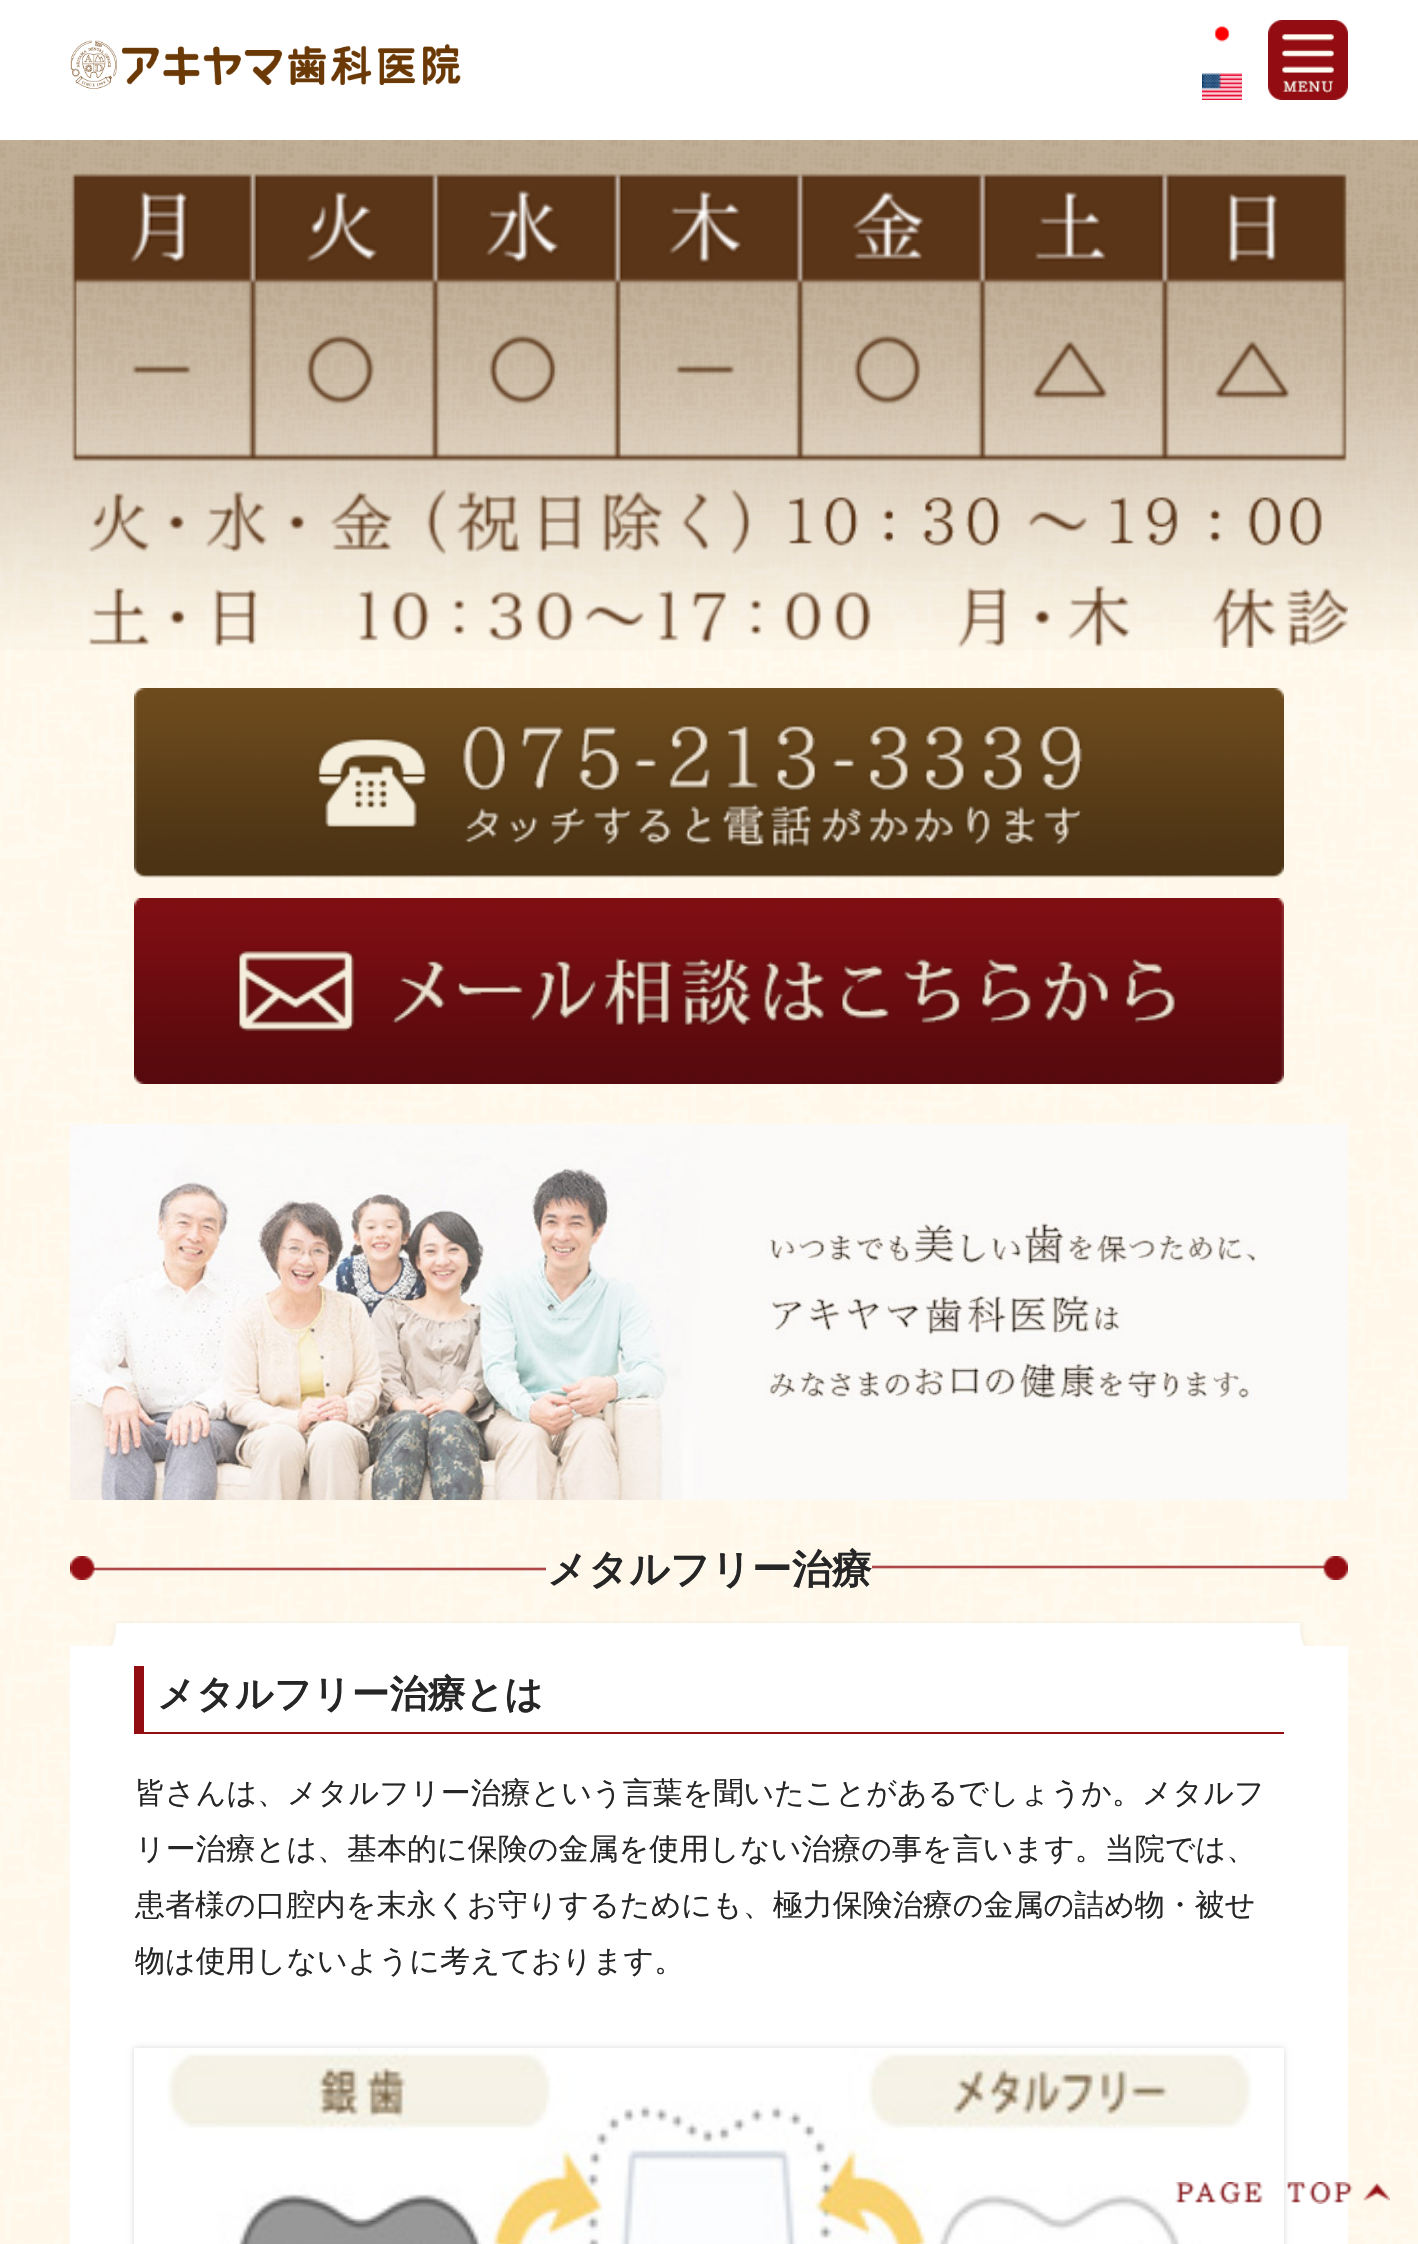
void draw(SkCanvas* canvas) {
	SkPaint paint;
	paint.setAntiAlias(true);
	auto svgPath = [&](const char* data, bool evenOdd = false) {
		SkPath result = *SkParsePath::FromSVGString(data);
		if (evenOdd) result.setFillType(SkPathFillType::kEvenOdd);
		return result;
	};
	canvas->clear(0xffffffff);
	canvas->drawImageRect(SkImages::DeferredFromEncodedData(SkData::MakeFromFileName("img1.png")), SkRect::MakeXYWH(0, 270, 1418, 1974), SkSamplingOptions());
	canvas->drawImageRect(SkImages::DeferredFromEncodedData(SkData::MakeFromFileName("img2.png")), SkRect::MakeXYWH(70, 40, 391, 49), SkSamplingOptions());
	canvas->drawImageRect(SkImages::DeferredFromEncodedData(SkData::MakeFromFileName("img3.png")), SkRect::MakeXYWH(1202, 26, 40, 74), SkSamplingOptions());
	canvas->drawImageRect(SkImages::DeferredFromEncodedData(SkData::MakeFromFileName("img4.png")), SkRect::MakeXYWH(1268, 20, 80, 80), SkSamplingOptions());
	canvas->drawImageRect(SkImages::DeferredFromEncodedData(SkData::MakeFromFileName("img5.png")), SkRect::MakeXYWH(0, 140, 1418, 510), SkSamplingOptions());
	canvas->drawImageRect(SkImages::DeferredFromEncodedData(SkData::MakeFromFileName("img6.png")), SkRect::MakeXYWH(71, 173, 1277, 475), SkSamplingOptions());
	canvas->drawImageRect(SkImages::DeferredFromEncodedData(SkData::MakeFromFileName("img7.png")), SkRect::MakeXYWH(134, 688, 1150, 190), SkSamplingOptions());
	canvas->drawImageRect(SkImages::DeferredFromEncodedData(SkData::MakeFromFileName("img8.png")), SkRect::MakeXYWH(134, 898, 1150, 186), SkSamplingOptions());
	canvas->drawImageRect(SkImages::DeferredFromEncodedData(SkData::MakeFromFileName("img9.png")), SkRect::MakeXYWH(70, 1124, 1278, 376), SkSamplingOptions());
	canvas->drawImageRect(SkImages::DeferredFromEncodedData(SkData::MakeFromFileName("img10.png")), SkRect::MakeXYWH(70, 1556, 476, 24), SkSamplingOptions());
	SkFont f1(fontMgr->matchFamilyStyle("WenQuanYi Zen Hei", SkFontStyle::Bold()), 40);
	f1.setSubpixel(true);
	paint.setColor(0xff262626);
	canvas->drawString("メタルフリー治療", 547, 1583, f1, paint);
	canvas->drawImageRect(SkImages::DeferredFromEncodedData(SkData::MakeFromFileName("img11.png")), SkRect::MakeXYWH(872, 1556, 476, 24), SkSamplingOptions());
	canvas->drawImageRect(SkImages::DeferredFromEncodedData(SkData::MakeFromFileName("img12.png")), SkRect::MakeXYWH(109, 1621, 1198, 25), SkSamplingOptions());
	paint.setColor(0xffffffff);
	canvas->drawRect(SkRect::MakeXYWH(70, 1646, 1278, 598), paint);
	paint.setColor(0xff930c11);
	canvas->drawRect(SkRect::MakeXYWH(144, 1732, 1140, 2), paint);
	canvas->drawRect(SkRect::MakeXYWH(134, 1666, 10, 68), paint);
	SkFont f2(fontMgr->matchFamilyStyle("WenQuanYi Zen Hei", SkFontStyle::Bold()), 38);
	f2.setSubpixel(true);
	paint.setColor(0xff262626);
	canvas->drawString("メタルフリー治療とは", 157, 1707, f2, paint);
	SkFont f3(fontMgr->matchFamilyStyle("WenQuanYi Zen Hei", SkFontStyle(500, SkFontStyle::kNormal_Width, SkFontStyle::kUpright_Slant)), 30);
	f3.setSubpixel(true);
	canvas->drawString("皆さんは、メタルフリー治療という言葉を聞いたことがあるでしょうか。メタルフ", 135, 1803, f3, paint);
	canvas->drawString("リー治療とは、基本的に保険の金属を使用しない治療の事を言います。当院では、", 135, 1859, f3, paint);
	canvas->drawString("患者様の口腔内を末永くお守りするためにも、極力保険治療の金属の詰め物・被せ", 135, 1915, f3, paint);
	canvas->drawString("物は使用しないように考えております。", 135, 1971, f3, paint);
	canvas->save();
	canvas->clipPath(svgPath("M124 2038H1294V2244H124ZM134 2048H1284V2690H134Z", true), true);
	paint.setColor(0x26000000);
	paint.setMaskFilter(SkMaskFilter::MakeBlur(kNormal_SkBlurStyle, 3));
	canvas->drawRect(SkRect::MakeXYWH(134, 2048, 1150, 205), paint);
	paint.setMaskFilter(nullptr);
	canvas->restore();
	canvas->drawImageRect(SkImages::DeferredFromEncodedData(SkData::MakeFromFileName("img13.png")), SkRect::MakeXYWH(167, 2048, 1084, 196), SkSamplingOptions());
	canvas->drawImageRect(SkImages::DeferredFromEncodedData(SkData::MakeFromFileName("img14.png")), SkRect::MakeXYWH(1175, 2182, 215, 22), SkSamplingOptions());
}
